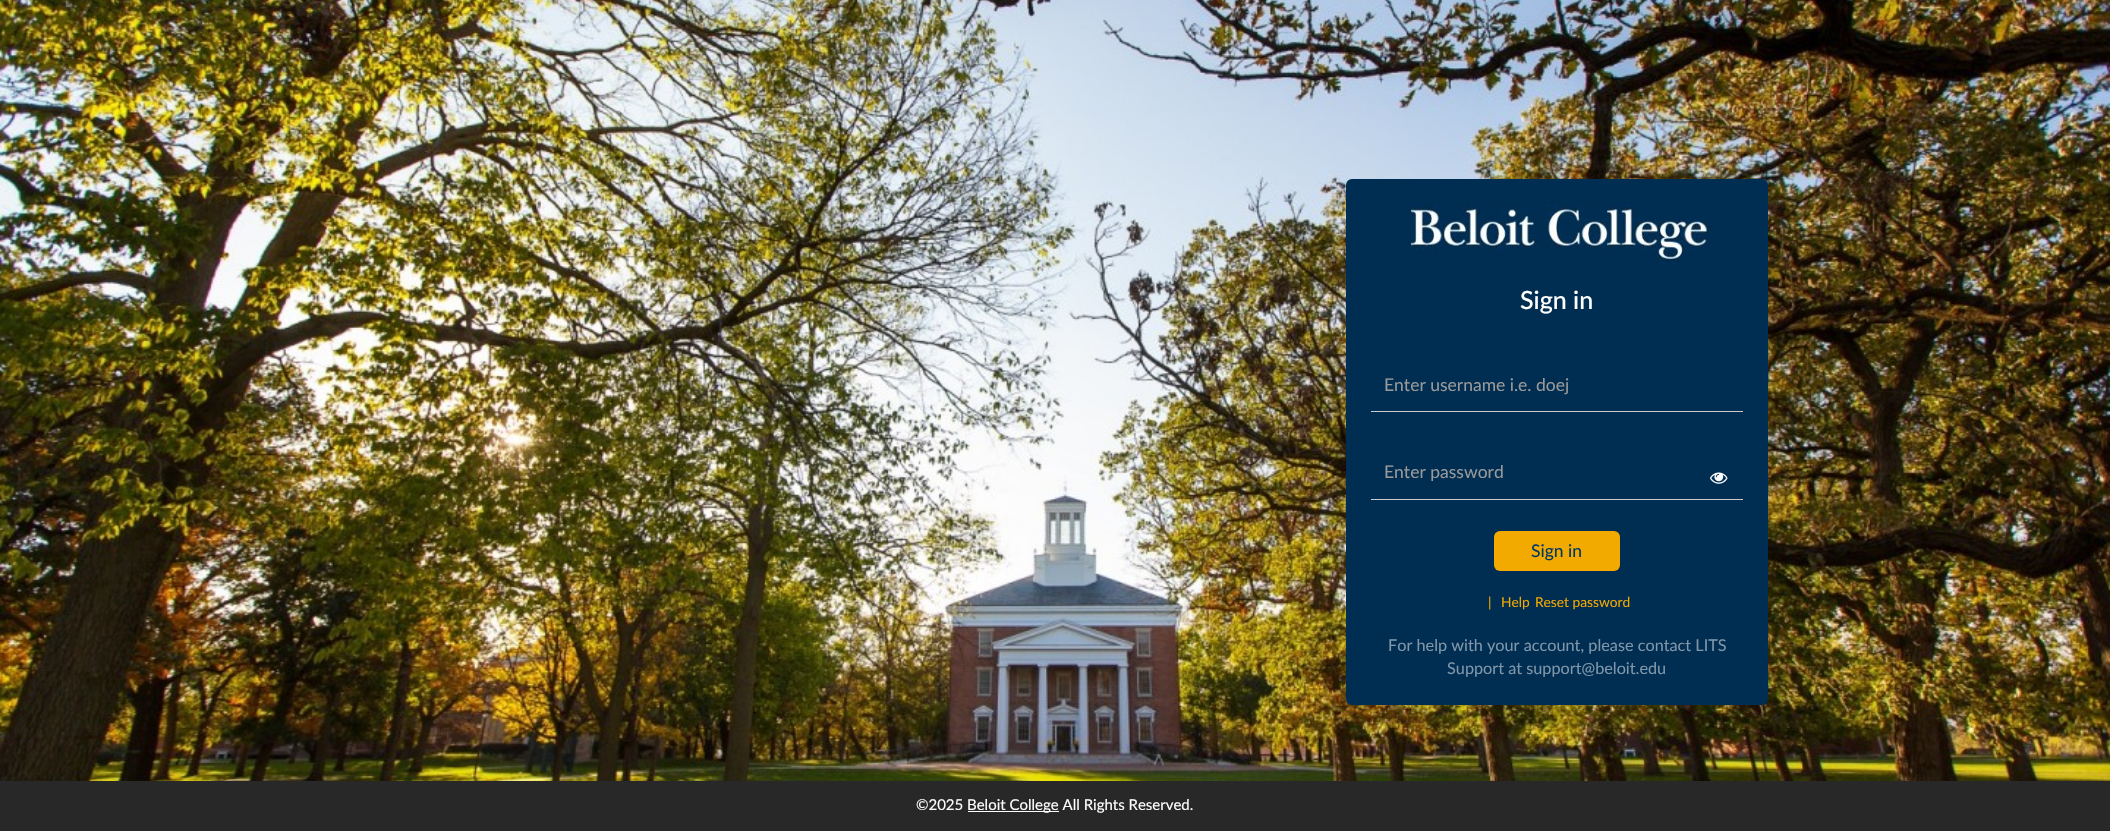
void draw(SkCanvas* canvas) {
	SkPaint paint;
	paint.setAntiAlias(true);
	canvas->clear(0xffffffff);
	canvas->drawImageRect(SkImages::DeferredFromEncodedData(SkData::MakeFromFileName("img1.png")), SkRect::MakeXYWH(0, 0, 2110, 781), SkSamplingOptions());
	paint.setColor(0xff002d52);
	canvas->drawRoundRect(SkRect::MakeXYWH(1346, 179, 422, 526), 6, 6, paint);
	canvas->drawImageRect(SkImages::DeferredFromEncodedData(SkData::MakeFromFileName("img2.png")), SkRect::MakeXYWH(1410, 204, 303, 61), SkSamplingOptions());
	SkFont f1(fontMgr->matchFamilyStyle("Lato", SkFontStyle(500, SkFontStyle::kNormal_Width, SkFontStyle::kUpright_Slant)), 25);
	f1.setSubpixel(true);
	paint.setColor(0xffffffff);
	canvas->drawString("Sign in", 1520, 309, f1, paint);
	paint.setColor(0xffcccccc);
	canvas->drawRect(SkRect::MakeXYWH(1371, 411, 372, 1), paint);
	SkFont f2(fontMgr->matchFamilyStyle("Lato", SkFontStyle::Normal()), 17.5);
	f2.setSubpixel(true);
	paint.setColor(0xff999999);
	canvas->drawString("Enter username i.e. doej", 1384, 391, f2, paint);
	paint.setColor(0xffcccccc);
	canvas->drawRect(SkRect::MakeXYWH(1371, 499, 372, 1), paint);
	paint.setColor(0xff999999);
	canvas->drawString("Enter password", 1384, 478, f2, paint);
	canvas->drawImageRect(SkImages::DeferredFromEncodedData(SkData::MakeFromFileName("img3.png")), SkRect::MakeXYWH(1710, 472, 18, 12), SkSamplingOptions());
	paint.setColor(0xfff2a900);
	canvas->drawRoundRect(SkRect::MakeXYWH(1494, 531, 126, 40), 6, 6, paint);
	paint.setColor(0xff003865);
	canvas->drawString("Sign in", 1531, 557, f2, paint);
	SkFont f3(fontMgr->matchFamilyStyle("Lato", SkFontStyle::Normal()), 13.75);
	f3.setSubpixel(true);
	paint.setColor(0xfff2a900);
	canvas->drawString("|", 1488, 607, f3, paint);
	canvas->drawString("Help", 1501, 607, f3, paint);
	canvas->drawString("Reset password", 1535, 607, f3, paint);
	SkFont f4(fontMgr->matchFamilyStyle("Lato", SkFontStyle::Normal()), 16.25);
	f4.setSubpixel(true);
	paint.setColor(0xff8096a9);
	canvas->drawString("For help with your account, please contact LITS", 1388, 651, f4, paint);
	canvas->drawString("Support at support@beloit.edu", 1447, 674, f4, paint);
	paint.setColor(0xff282828);
	canvas->drawRect(SkRect::MakeXYWH(0, 781, 2110, 50), paint);
	SkFont f5(fontMgr->matchFamilyStyle("Lato", SkFontStyle::Normal()), 15);
	f5.setSubpixel(true);
	paint.setColor(0xffffffff);
	canvas->drawString("©2025", 916, 810, f5, paint);
	canvas->drawRect(SkRect::MakeXYWH(968, 811, 91, 1), paint);
	canvas->drawString("Beloit College All Rights Reserved.", 967, 810, f5, paint);
}
